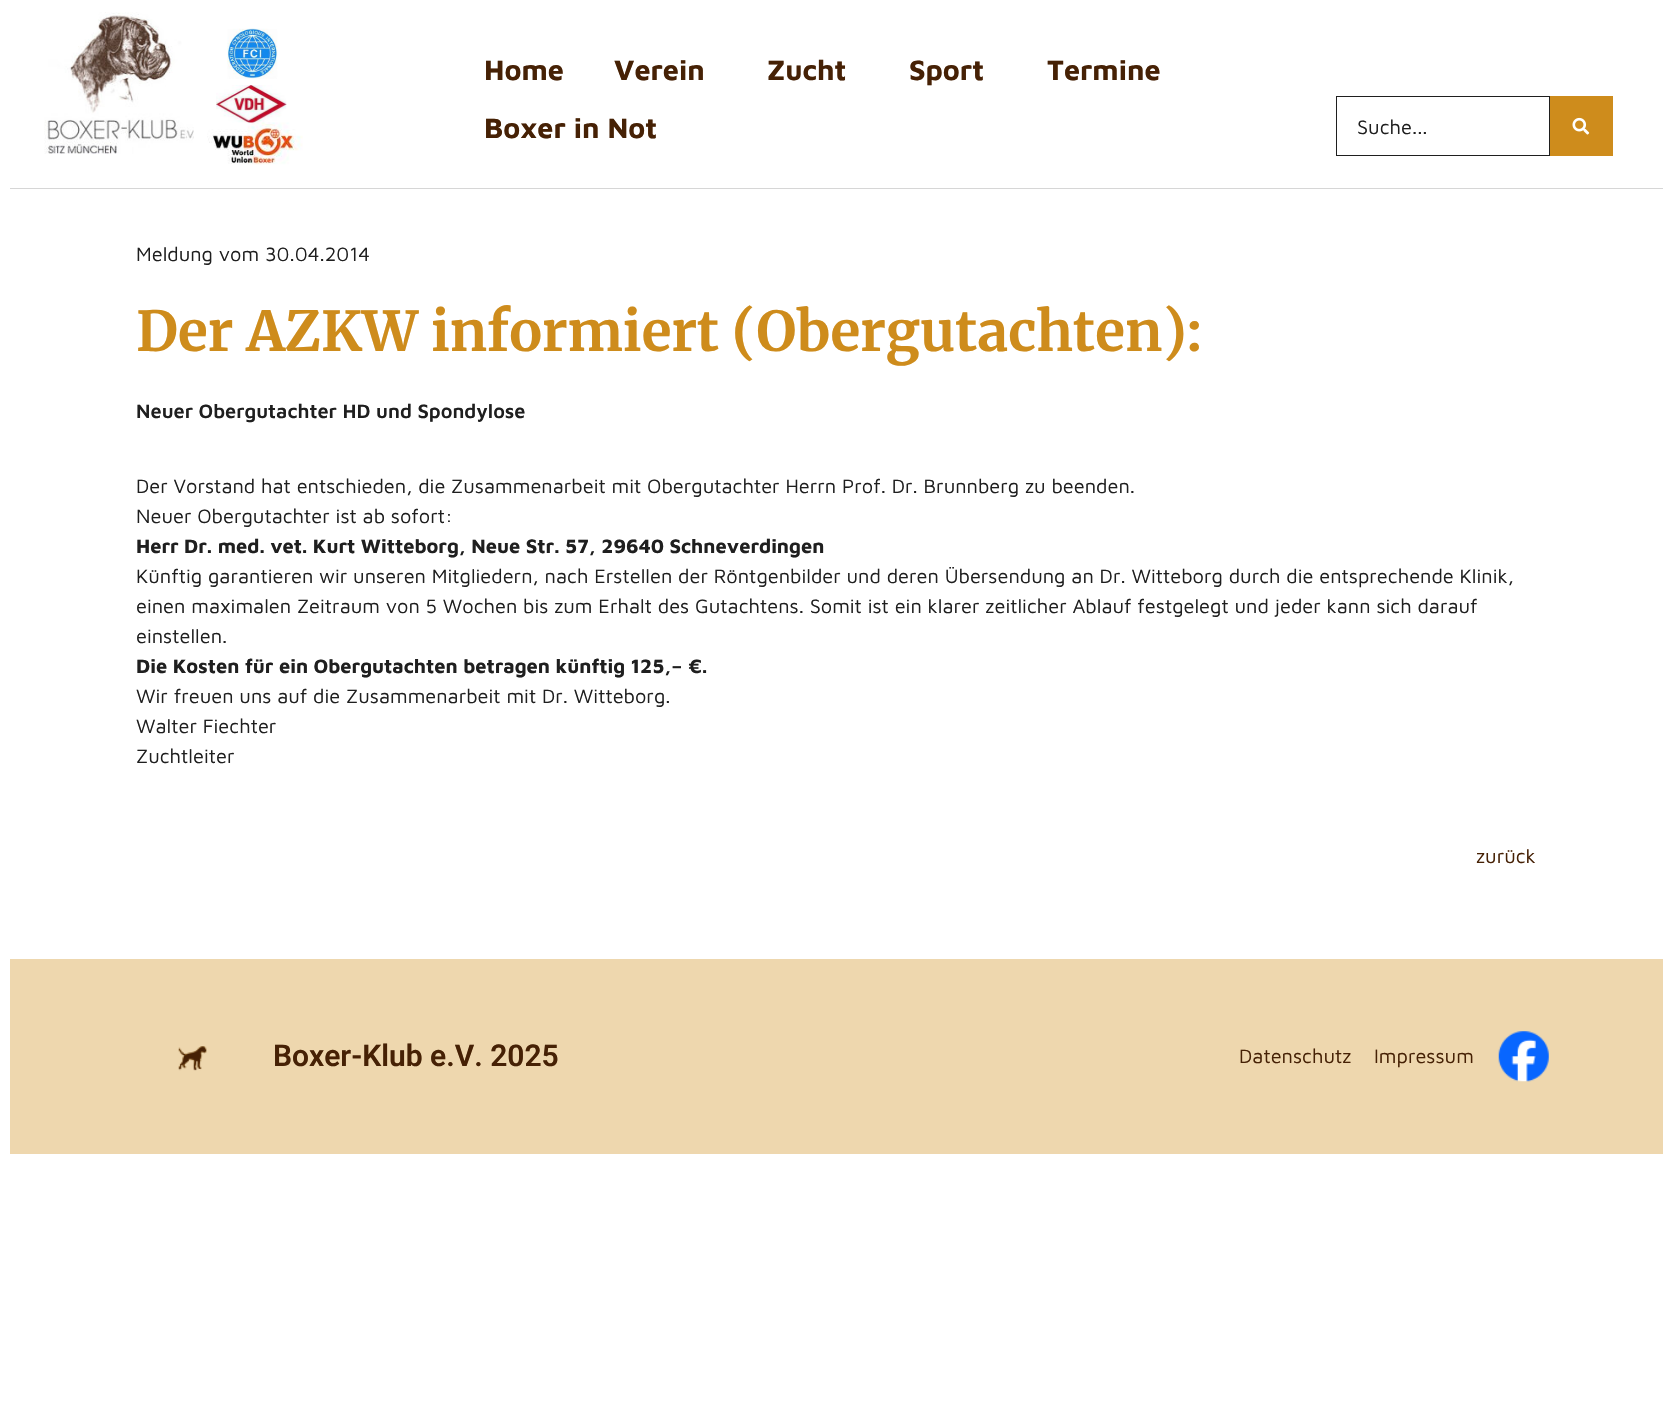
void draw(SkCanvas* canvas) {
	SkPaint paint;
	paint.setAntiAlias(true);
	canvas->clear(0xffffffff);
	paint.setColor(0xffd6d6d6);
	canvas->drawRect(SkRect::MakeXYWH(10, 188, 1653, 1), paint);
	canvas->drawImageRect(SkImages::DeferredFromEncodedData(SkData::MakeFromFileName("img1.png")), SkRect::MakeXYWH(44, 12, 152, 142), SkSamplingOptions());
	canvas->drawImageRect(SkImages::DeferredFromEncodedData(SkData::MakeFromFileName("img2.png")), SkRect::MakeXYWH(227, 28, 51, 51), SkSamplingOptions());
	canvas->drawImageRect(SkImages::DeferredFromEncodedData(SkData::MakeFromFileName("img3.png")), SkRect::MakeXYWH(216, 85, 71, 38), SkSamplingOptions());
	canvas->drawImageRect(SkImages::DeferredFromEncodedData(SkData::MakeFromFileName("img4.png")), SkRect::MakeXYWH(193, 122, 110, 43), SkSamplingOptions());
	SkFont f1(fontMgr->matchFamilyStyle("Maven Pro", SkFontStyle::Bold()), 28.75);
	f1.setSubpixel(true);
	paint.setColor(0xff462105);
	canvas->drawString("Home", 484, 80, f1, paint);
	canvas->drawString("Verein", 614, 80, f1, paint);
	canvas->drawString("Zucht", 767, 80, f1, paint);
	canvas->drawString("Sport", 909, 80, f1, paint);
	canvas->drawString("Termine", 1047, 80, f1, paint);
	canvas->drawString("Boxer in Not", 484, 138, f1, paint);
	paint.setStroke(true);
	paint.setStrokeWidth(1);
	paint.setColor(0xff1f1f1f);
	canvas->drawRect(SkRect::MakeXYWH(1336.5, 96.5, 213, 59), paint);
	SkFont f2(fontMgr->matchFamilyStyle("Maven Pro", SkFontStyle::Normal()), 20);
	f2.setSubpixel(true);
	paint.setStroke(false);
	canvas->drawString("Suche...", 1357, 134, f2, paint);
	paint.setColor(0xffce8c1c);
	canvas->drawRect(SkRect::MakeXYWH(1550, 96, 63, 60), paint);
	canvas->drawImageRect(SkImages::DeferredFromEncodedData(SkData::MakeFromFileName("img5.png")), SkRect::MakeXYWH(1572, 117, 18, 18), SkSamplingOptions());
	paint.setColor(0xff1f1f1f);
	canvas->drawString("Meldung vom 30.04.2014", 136, 261, f2, paint);
	SkFont f3(fontMgr->matchFamilyStyle("Merriweather", SkFontStyle::Bold()), 55);
	f3.setSubpixel(true);
	paint.setColor(0xffce8c1c);
	canvas->drawString("Der AZKW informiert (Obergutachten):", 136, 351, f3, paint);
	SkFont f4(fontMgr->matchFamilyStyle("Maven Pro", SkFontStyle(600, SkFontStyle::kNormal_Width, SkFontStyle::kUpright_Slant)), 20);
	f4.setSubpixel(true);
	paint.setColor(0xff1f1f1f);
	canvas->drawString("Neuer Obergutachter HD und Spondylose", 136, 418, f4, paint);
	canvas->drawString("Der Vorstand hat entschieden, die Zusammenarbeit mit Obergutachter Herrn Prof. Dr. Brunnberg zu beenden.", 136, 493, f2, paint);
	canvas->drawString("Neuer Obergutachter ist ab sofort:", 136, 523, f2, paint);
	SkFont f5(fontMgr->matchFamilyStyle("Maven Pro", SkFontStyle::Bold()), 20);
	f5.setSubpixel(true);
	canvas->drawString("Herr Dr. med. vet. Kurt Witteborg, Neue Str. 57, 29640 Schneverdingen", 136, 553, f5, paint);
	canvas->drawString("Künftig garantieren wir unseren Mitgliedern, nach Erstellen der Röntgenbilder und deren Übersendung an Dr. Witteborg durch die entsprechende Klinik,", 136, 583, f2, paint);
	canvas->drawString("einen maximalen Zeitraum von 5 Wochen bis zum Erhalt des Gutachtens. Somit ist ein klarer zeitlicher Ablauf festgelegt und jeder kann sich darauf", 136, 613, f2, paint);
	canvas->drawString("einstellen.", 136, 643, f2, paint);
	canvas->drawString("Die Kosten für ein Obergutachten betragen künftig 125,– €.", 136, 673, f5, paint);
	canvas->drawString("Wir freuen uns auf die Zusammenarbeit mit Dr. Witteborg.", 136, 703, f2, paint);
	canvas->drawString("Walter Fiechter", 136, 733, f2, paint);
	canvas->drawString("Zuchtleiter", 136, 763, f2, paint);
	paint.setColor(0xff462105);
	canvas->drawString("zurück", 1476, 863, f2, paint);
	paint.setColor(0xffeed7ae);
	canvas->drawRect(SkRect::MakeXYWH(10, 959, 1653, 195), paint);
	canvas->drawImageRect(SkImages::DeferredFromEncodedData(SkData::MakeFromFileName("img6.png")), SkRect::MakeXYWH(178, 1046, 29, 25), SkSamplingOptions());
	SkFont f6(fontMgr->matchFamilyStyle("Roboto", SkFontStyle(600, SkFontStyle::kNormal_Width, SkFontStyle::kUpright_Slant)), 30);
	f6.setSubpixel(true);
	paint.setColor(0xff462105);
	canvas->drawString("Boxer-Klub e.V. 2025", 273, 1066, f6, paint);
	canvas->drawString("Datenschutz", 1239, 1063, f2, paint);
	canvas->drawString("Impressum", 1374, 1063, f2, paint);
	canvas->drawImageRect(SkImages::DeferredFromEncodedData(SkData::MakeFromFileName("img7.png")), SkRect::MakeXYWH(1498, 1031, 51, 51), SkSamplingOptions());
}
